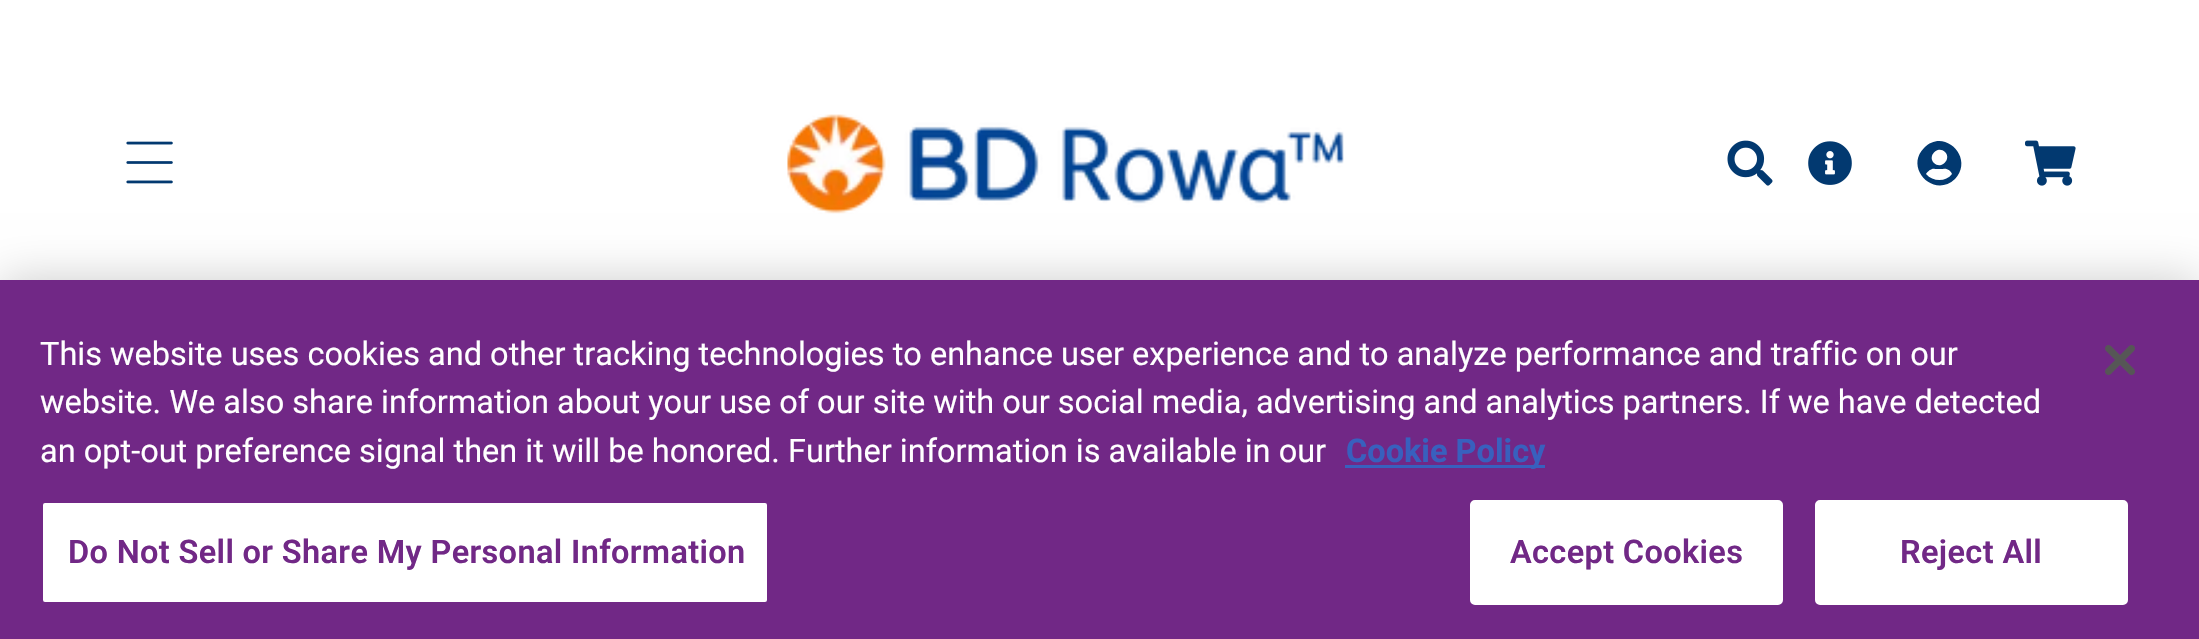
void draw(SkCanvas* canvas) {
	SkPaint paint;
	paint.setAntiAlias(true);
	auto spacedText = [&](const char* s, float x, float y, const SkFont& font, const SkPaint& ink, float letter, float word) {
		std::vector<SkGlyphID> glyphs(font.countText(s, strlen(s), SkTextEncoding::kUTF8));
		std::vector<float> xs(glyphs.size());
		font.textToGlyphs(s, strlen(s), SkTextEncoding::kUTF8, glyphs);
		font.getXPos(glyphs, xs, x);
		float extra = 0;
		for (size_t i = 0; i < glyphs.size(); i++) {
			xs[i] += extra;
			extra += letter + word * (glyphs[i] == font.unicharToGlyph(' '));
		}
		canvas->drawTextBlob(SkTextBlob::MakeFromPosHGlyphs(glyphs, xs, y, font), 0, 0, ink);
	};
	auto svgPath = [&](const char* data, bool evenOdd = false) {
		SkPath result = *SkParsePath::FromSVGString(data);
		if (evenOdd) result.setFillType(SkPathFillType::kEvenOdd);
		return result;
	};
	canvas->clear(0xffffffff);
	canvas->drawImageRect(SkImages::DeferredFromEncodedData(SkData::MakeFromFileName("img1.png")), SkRect::MakeXYWH(126, 141, 47, 43), SkSamplingOptions());
	canvas->drawImageRect(SkImages::DeferredFromEncodedData(SkData::MakeFromFileName("img2.png")), SkRect::MakeXYWH(787, 114, 557, 100), SkSamplingOptions());
	canvas->drawImageRect(SkImages::DeferredFromEncodedData(SkData::MakeFromFileName("img3.png")), SkRect::MakeXYWH(1727, 140, 46, 46), SkSamplingOptions());
	canvas->drawImageRect(SkImages::DeferredFromEncodedData(SkData::MakeFromFileName("img4.png")), SkRect::MakeXYWH(1808, 141, 44, 44), SkSamplingOptions());
	paint.setColor(0xff023970);
	canvas->drawPath(svgPath("M1924 148C1944 127 1975 158 1955 179C1934 199 1904 168 1924 148ZM1945 152C1938 145 1927 156 1934 163C1941 170 1952 159 1945 152ZM1926 174C1933 182 1946 182 1952 174C1951 171 1947 168 1943 169H1939H1935C1932 168 1928 171 1926 174Z"), paint);
	canvas->drawImageRect(SkImages::DeferredFromEncodedData(SkData::MakeFromFileName("img5.png")), SkRect::MakeXYWH(2025, 140, 51, 46), SkSamplingOptions());
	paint.setColor(0x33000000);
	paint.setMaskFilter(SkMaskFilter::MakeBlur(kNormal_SkBlurStyle, 22.5));
	canvas->drawRect(SkRect::MakeXYWH(0, 280, 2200, 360), paint);
	paint.setMaskFilter(nullptr);
	paint.setColor(0xff712886);
	canvas->drawRect(SkRect::MakeXYWH(0, 280, 2199, 359), paint);
	SkFont f1(fontMgr->matchFamilyStyle("Roboto", SkFontStyle::Normal()), 32.52);
	f1.setSubpixel(true);
	paint.setColor(0xffffffff);
	canvas->drawString("This website uses cookies and other tracking technologies to enhance user experience and to analyze performance and traffic on our", 40, 365, f1, paint);
	canvas->drawString("website. We also share information about your use of our site with our social media, advertising and analytics partners. If we have detected", 40, 413, f1, paint);
	canvas->drawString("an opt-out preference signal then it will be honored. Further information is available in our", 40, 462, f1, paint);
	paint.setColor(0xff3860be);
	canvas->drawRect(SkRect::MakeXYWH(1345, 465, 200, 3), paint);
	SkFont f2(fontMgr->matchFamilyStyle("Roboto", SkFontStyle::Bold()), 32.52);
	f2.setSubpixel(true);
	canvas->drawString("Cookie Policy", 1346, 462, f2, paint);
	paint.setColor(0xffffffff);
	canvas->drawRoundRect(SkRect::MakeXYWH(41.5, 501.5, 727, 102), 3.5, 3.5, paint);
	paint.setStroke(true);
	paint.setStrokeWidth(3);
	paint.setColor(0xff712886);
	canvas->drawRoundRect(SkRect::MakeXYWH(41.5, 501.5, 727, 102), 3.5, 3.5, paint);
	SkFont f3(fontMgr->matchFamilyStyle("Roboto", SkFontStyle(600, SkFontStyle::kNormal_Width, SkFontStyle::kUpright_Slant)), 32.52);
	f3.setSubpixel(true);
	paint.setStroke(false);
	spacedText("Do Not Sell or Share My Personal Information", 68, 563, f3, paint, 0.35, 0);
	paint.setColor(0xffffffff);
	canvas->drawRoundRect(SkRect::MakeXYWH(1471.5, 501.5, 310, 102), 3.5, 3.5, paint);
	paint.setStroke(true);
	canvas->drawRoundRect(SkRect::MakeXYWH(1471.5, 501.5, 310, 102), 3.5, 3.5, paint);
	paint.setStroke(false);
	paint.setColor(0xff712886);
	spacedText("Accept Cookies", 1510, 563, f3, paint, 0.35, 0);
	paint.setColor(0xffffffff);
	canvas->drawRoundRect(SkRect::MakeXYWH(1816.5, 501.5, 310, 102), 3.5, 3.5, paint);
	paint.setStroke(true);
	canvas->drawRoundRect(SkRect::MakeXYWH(1816.5, 501.5, 310, 102), 3.5, 3.5, paint);
	paint.setStroke(false);
	paint.setColor(0xff712886);
	spacedText("Reject All", 1900, 563, f3, paint, 0.35, 0);
	canvas->drawImageRect(SkImages::DeferredFromEncodedData(SkData::MakeFromFileName("img6.png")), SkRect::MakeXYWH(2105, 345, 30, 30), SkSamplingOptions());
}
